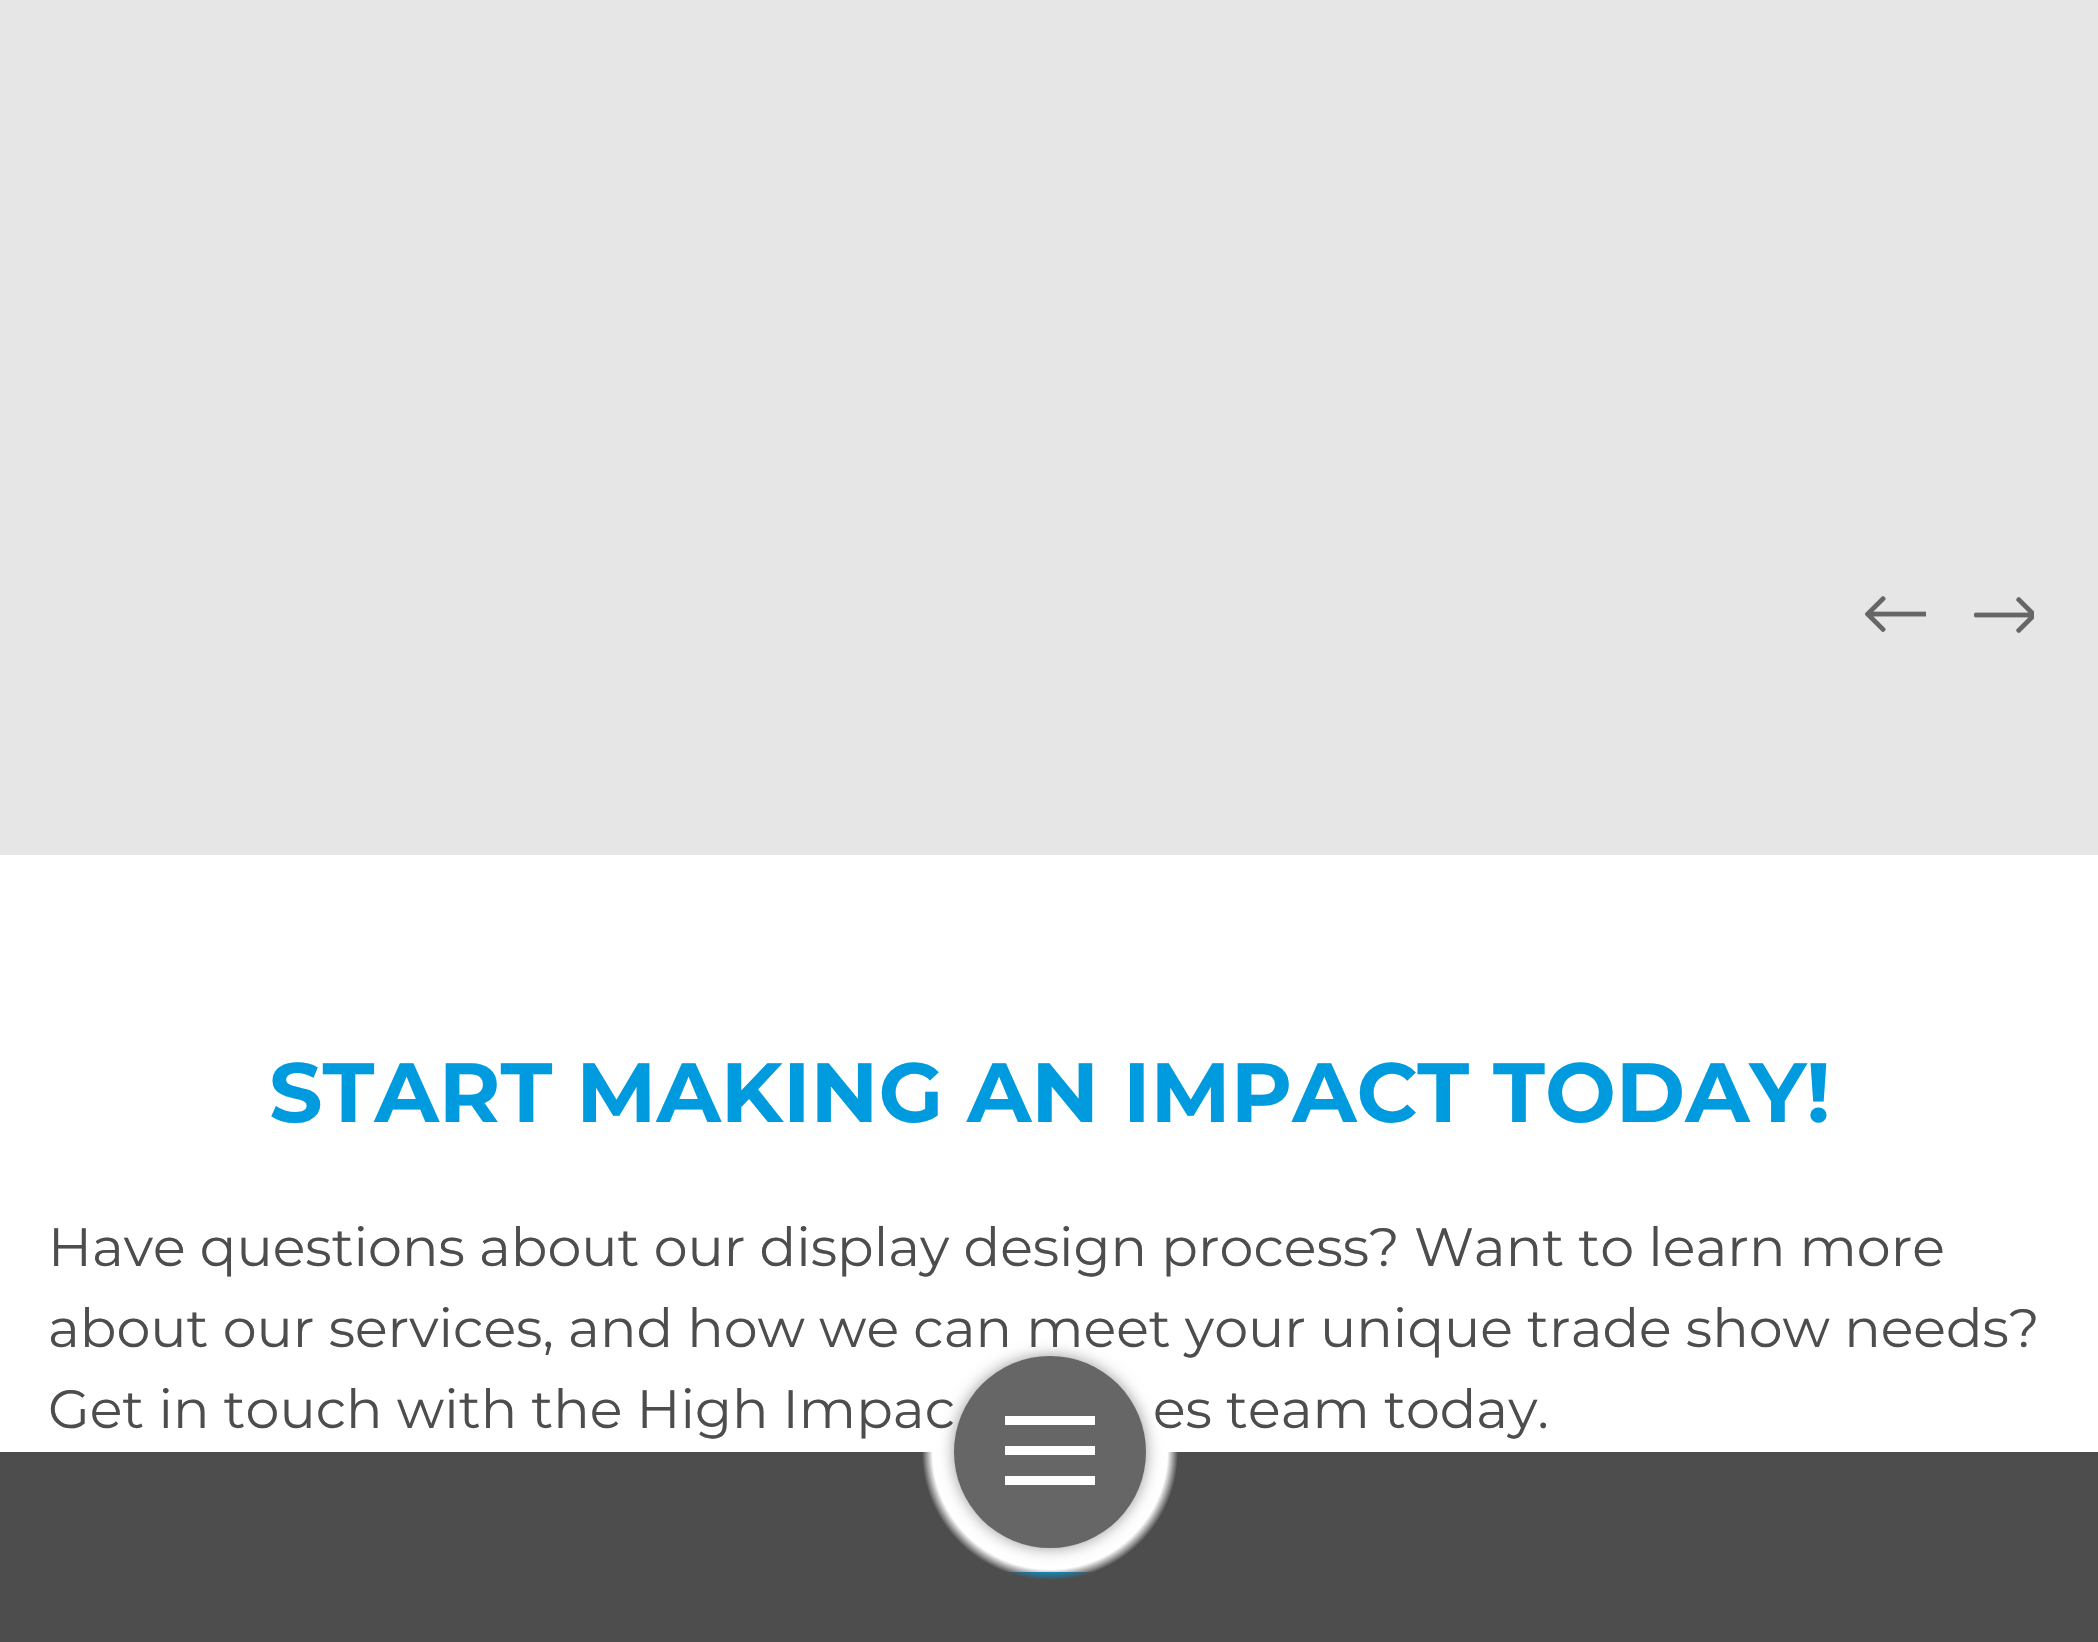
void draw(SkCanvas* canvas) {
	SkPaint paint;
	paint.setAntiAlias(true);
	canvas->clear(0xffffffff);
	paint.setColor(0xffe6e6e6);
	canvas->drawRect(SkRect::MakeXYWH(0, 0, 2098, 855), paint);
	canvas->drawImageRect(SkImages::DeferredFromEncodedData(SkData::MakeFromFileName("img1.png")), SkRect::MakeXYWH(1865, 596, 61, 36), SkSamplingOptions());
	canvas->drawImageRect(SkImages::DeferredFromEncodedData(SkData::MakeFromFileName("img2.png")), SkRect::MakeXYWH(1974, 597, 60, 36), SkSamplingOptions());
	SkFont f1(fontMgr->matchFamilyStyle("Montserrat", SkFontStyle::Bold()), 84);
	f1.setSubpixel(true);
	paint.setColor(0xff009bde);
	canvas->drawString("START MAKING AN IMPACT TODAY!", 269, 1122, f1, paint);
	SkFont f2(fontMgr->matchFamilyStyle("Montserrat", SkFontStyle::Normal()), 54);
	f2.setSubpixel(true);
	paint.setColor(0xff4d4d4d);
	canvas->drawString("Have questions about our display design process? Want to learn more", 48, 1266, f2, paint);
	canvas->drawString("about our services, and how we can meet your unique trade show needs?", 48, 1347, f2, paint);
	canvas->drawString("Get in touch with the High Impac", 48, 1428, f2, paint);
	canvas->drawString("es team today.", 1153, 1428, f2, paint);
	paint.setColor(0xff009bde);
	canvas->drawRect(SkRect::MakeXYWH(1006, 1572, 88, 8), paint);
	{
		const SkColor colors[] = {0x004d4d4d, 0xff4d4d4d};
		const float stops[] = {0.11, 0.12};
		paint.setShader(SkGradientShader::MakeRadial({1050, 1452}, 1067, colors, stops, 2, SkTileMode::kClamp));
		paint.setAlpha(255);
	}
	canvas->drawRect(SkRect::MakeXYWH(0, 1452, 2098, 190), paint);
	paint.setShader(nullptr);
	paint.setColor(0x66000000);
	paint.setMaskFilter(SkMaskFilter::MakeBlur(kNormal_SkBlurStyle, 7.5));
	canvas->drawRoundRect(SkRect::MakeXYWH(954, 1356, 192, 192), 96, 96, paint);
	paint.setMaskFilter(nullptr);
	paint.setColor(0xff666666);
	canvas->drawCircle(1050, 1452, 96, paint);
	paint.setColor(0xffffffff);
	canvas->drawRect(SkRect::MakeXYWH(1005, 1446, 90, 9), paint);
	canvas->drawRect(SkRect::MakeXYWH(1005, 1416, 90, 9), paint);
	canvas->drawRect(SkRect::MakeXYWH(1005, 1476, 90, 9), paint);
}
